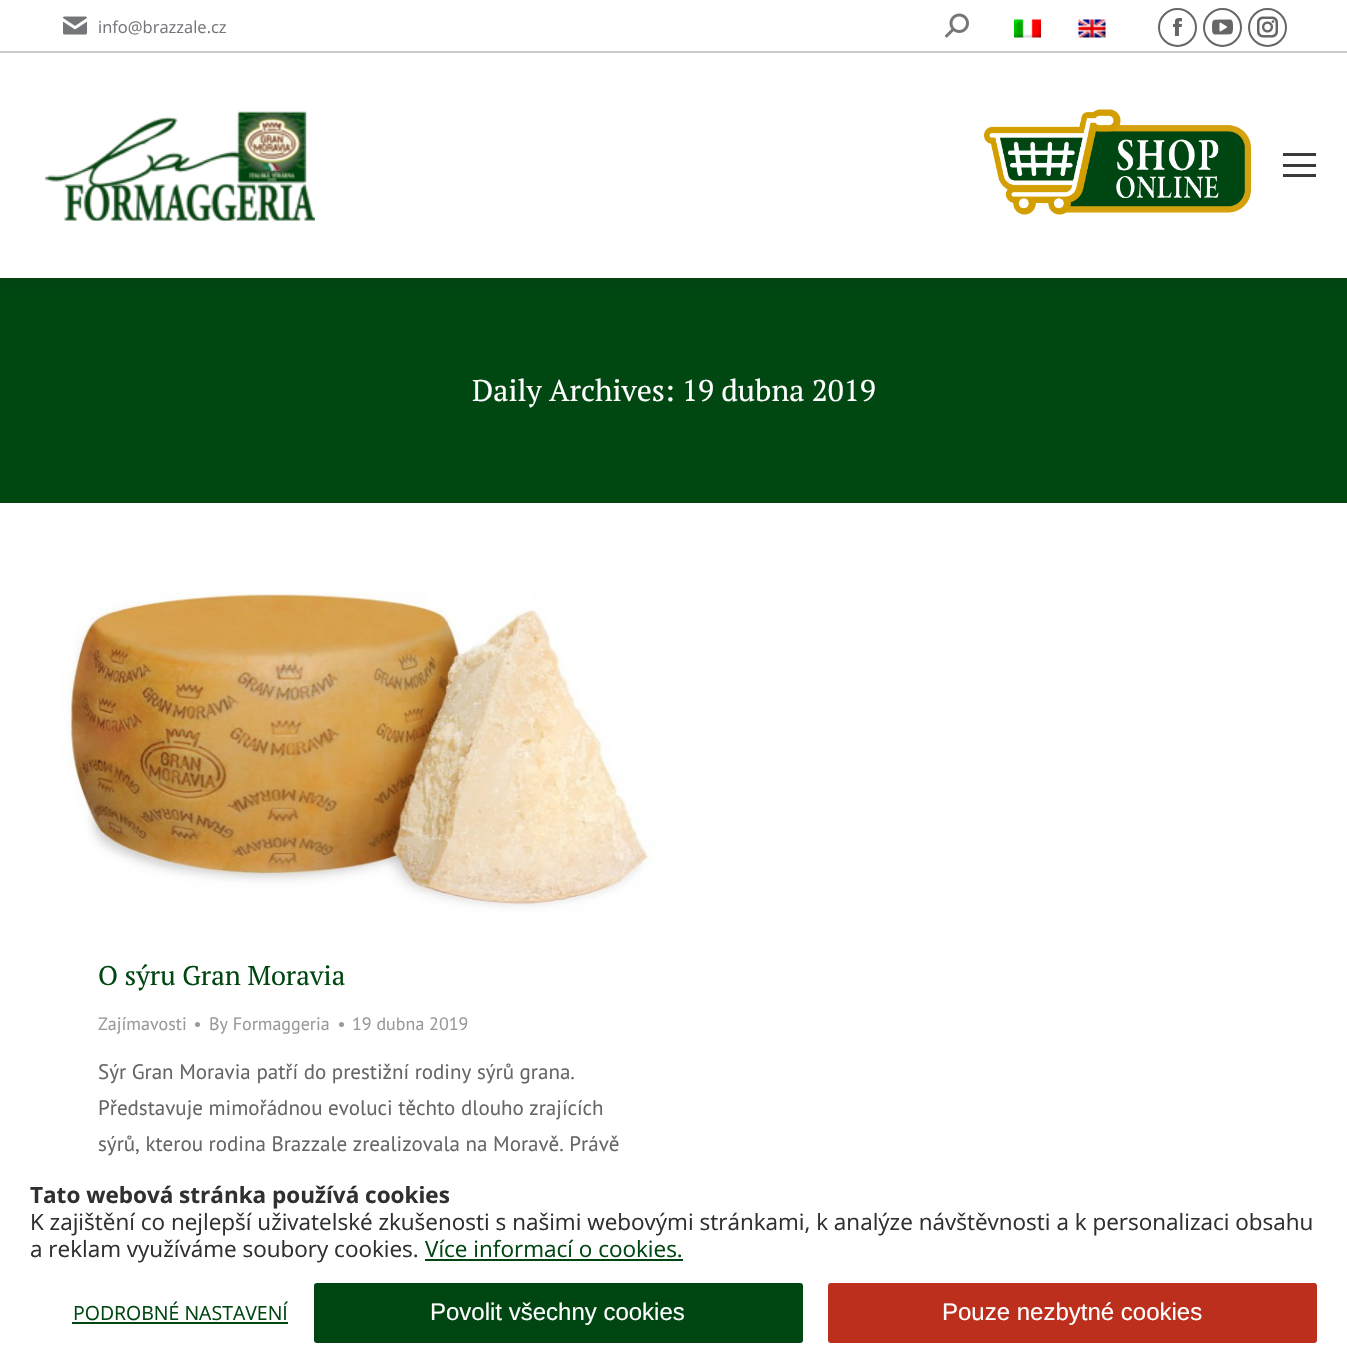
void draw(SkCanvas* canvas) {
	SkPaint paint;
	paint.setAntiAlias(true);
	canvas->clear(0xffffffff);
	paint.setColor(0xff004712);
	canvas->drawRect(SkRect::MakeXYWH(0, 278, 1347, 225), paint);
	paint.setColor(0x12000000);
	paint.setMaskFilter(SkMaskFilter::MakeBlur(kNormal_SkBlurStyle, 11));
	canvas->drawRect(SkRect::MakeXYWH(-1, -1, 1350, 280), paint);
	paint.setMaskFilter(nullptr);
	paint.setColor(0xffffffff);
	canvas->drawRect(SkRect::MakeXYWH(0, 0, 1347, 278), paint);
	canvas->drawImageRect(SkImages::DeferredFromEncodedData(SkData::MakeFromFileName("img1.png")), SkRect::MakeXYWH(63, 16, 24, 19), SkSamplingOptions());
	SkFont f1(fontMgr->matchFamilyStyle("Open Sans", SkFontStyle::Normal()), 16.5);
	f1.setSubpixel(true);
	paint.setColor(0xff74767a);
	canvas->drawString("info@brazzale.cz", 98, 33, f1, paint);
	canvas->drawImageRect(SkImages::DeferredFromEncodedData(SkData::MakeFromFileName("img2.png")), SkRect::MakeXYWH(945, 13, 24, 25), SkSamplingOptions());
	canvas->drawImageRect(SkImages::DeferredFromEncodedData(SkData::MakeFromFileName("img3.png")), SkRect::MakeXYWH(1014, 19, 27, 19), SkSamplingOptions());
	canvas->drawImageRect(SkImages::DeferredFromEncodedData(SkData::MakeFromFileName("img4.png")), SkRect::MakeXYWH(1078, 19, 28, 19), SkSamplingOptions());
	paint.setStroke(true);
	paint.setStrokeWidth(2);
	paint.setColor(0xff666666);
	canvas->drawCircle(1177.5, 27.5, 18.5, paint);
	canvas->drawImageRect(SkImages::DeferredFromEncodedData(SkData::MakeFromFileName("img5.png")), SkRect::MakeXYWH(1173, 18, 9, 18), SkSamplingOptions());
	canvas->drawCircle(1222.5, 27.5, 18.5, paint);
	canvas->drawImageRect(SkImages::DeferredFromEncodedData(SkData::MakeFromFileName("img6.png")), SkRect::MakeXYWH(1212, 19, 21, 16), SkSamplingOptions());
	canvas->drawCircle(1267.5, 27.5, 18.5, paint);
	canvas->drawImageRect(SkImages::DeferredFromEncodedData(SkData::MakeFromFileName("img7.png")), SkRect::MakeXYWH(1257, 16, 21, 22), SkSamplingOptions());
	paint.setStroke(false);
	paint.setColor(0xffcccccc);
	canvas->drawRect(SkRect::MakeXYWH(0, 51, 1347, 2), paint);
	canvas->drawImageRect(SkImages::DeferredFromEncodedData(SkData::MakeFromFileName("img8.png")), SkRect::MakeXYWH(45, 111, 270, 110), SkSamplingOptions());
	canvas->drawImageRect(SkImages::DeferredFromEncodedData(SkData::MakeFromFileName("img9.png")), SkRect::MakeXYWH(984, 109, 267, 106), SkSamplingOptions());
	paint.setColor(0xff3a3a3a);
	canvas->drawRect(SkRect::MakeXYWH(1283, 153, 33, 3), paint);
	canvas->drawRect(SkRect::MakeXYWH(1283, 164, 33, 3), paint);
	canvas->drawRect(SkRect::MakeXYWH(1283, 174, 33, 3), paint);
	SkFont f2(fontMgr->matchFamilyStyle("PT Serif", SkFontStyle::Normal()), 30);
	f2.setSubpixel(true);
	paint.setColor(0xffffffff);
	canvas->drawString("Daily Archives: 19 dubna 2019", 472, 401, f2, paint);
	canvas->drawImageRect(SkImages::DeferredFromEncodedData(SkData::MakeFromFileName("img10.png")), SkRect::MakeXYWH(60, 592, 595, 321), SkSamplingOptions());
	SkFont f3(fontMgr->matchFamilyStyle("PT Serif", SkFontStyle::Normal()), 27);
	f3.setSubpixel(true);
	paint.setColor(0xff004712);
	canvas->drawString("O sýru Gran Moravia", 98, 985, f3, paint);
	SkFont f4(fontMgr->matchFamilyStyle("PT Sans", SkFontStyle::Normal()), 18);
	f4.setSubpixel(true);
	paint.setColor(0xff999999);
	canvas->drawString("Zajímavosti", 98, 1030, f4, paint);
	canvas->drawCircle(197.5, 1024.5, 2.5, paint);
	canvas->drawString("By Formaggeria", 209, 1030, f4, paint);
	canvas->drawCircle(341.5, 1024.5, 2.5, paint);
	canvas->drawString("19 dubna 2019", 352, 1030, f4, paint);
	SkFont f5(fontMgr->matchFamilyStyle("PT Sans", SkFontStyle::Normal()), 21);
	f5.setSubpixel(true);
	paint.setColor(0xff666666);
	canvas->drawString("Sýr Gran Moravia patří do prestižní rodiny sýrů grana.", 98, 1079, f5, paint);
	canvas->drawString("Představuje mimořádnou evoluci těchto dlouho zrajících", 98, 1115, f5, paint);
	canvas->drawString("sýrů, kterou rodina Brazzale zrealizovala na Moravě. Právě", 98, 1151, f5, paint);
	SkFont f6(fontMgr->matchFamilyStyle("Open Sans", SkFontStyle::Bold()), 22.5);
	f6.setSubpixel(true);
	paint.setColor(0xff303030);
	canvas->drawString("Tato webová stránka používá cookies", 30, 1203, f6, paint);
	SkFont f7(fontMgr->matchFamilyStyle("Open Sans", SkFontStyle::Normal()), 22.5);
	f7.setSubpixel(true);
	canvas->drawString("K zajištění co nejlepší uživatelské zkušenosti s našimi webovými stránkami, k analýze návštěvnosti a k personalizaci obsahu", 30, 1230, f7, paint);
	canvas->drawString("a reklam využíváme soubory cookies.", 30, 1257, f7, paint);
	paint.setColor(0xff004712);
	canvas->drawString("Více informací o cookies.", 425, 1257, f7, paint);
	paint.setColor(0xff004612);
	canvas->drawRect(SkRect::MakeXYWH(425, 1259, 258, 2), paint);
	SkFont f8(fontMgr->matchFamilyStyle("Open Sans", SkFontStyle::Normal()), 19.5);
	f8.setSubpixel(true);
	paint.setColor(0xff004712);
	canvas->drawString("PODROBNÉ NASTAVENÍ", 73, 1320, f8, paint);
	paint.setColor(0xff004612);
	canvas->drawRect(SkRect::MakeXYWH(72, 1322, 216, 2), paint);
	canvas->drawRoundRect(SkRect::MakeXYWH(314, 1283, 489, 60), 3, 3, paint);
	SkFont f9(fontMgr->matchFamilyStyle("Liberation Sans", SkFontStyle::Normal()), 24);
	f9.setSubpixel(true);
	paint.setColor(0xffffffff);
	canvas->drawString("Povolit všechny cookies", 430, 1320, f9, paint);
	paint.setColor(0xffbc2f1c);
	canvas->drawRoundRect(SkRect::MakeXYWH(828, 1283, 489, 60), 3, 3, paint);
	paint.setColor(0xffffffff);
	canvas->drawString("Pouze nezbytné cookies", 942, 1320, f9, paint);
}
